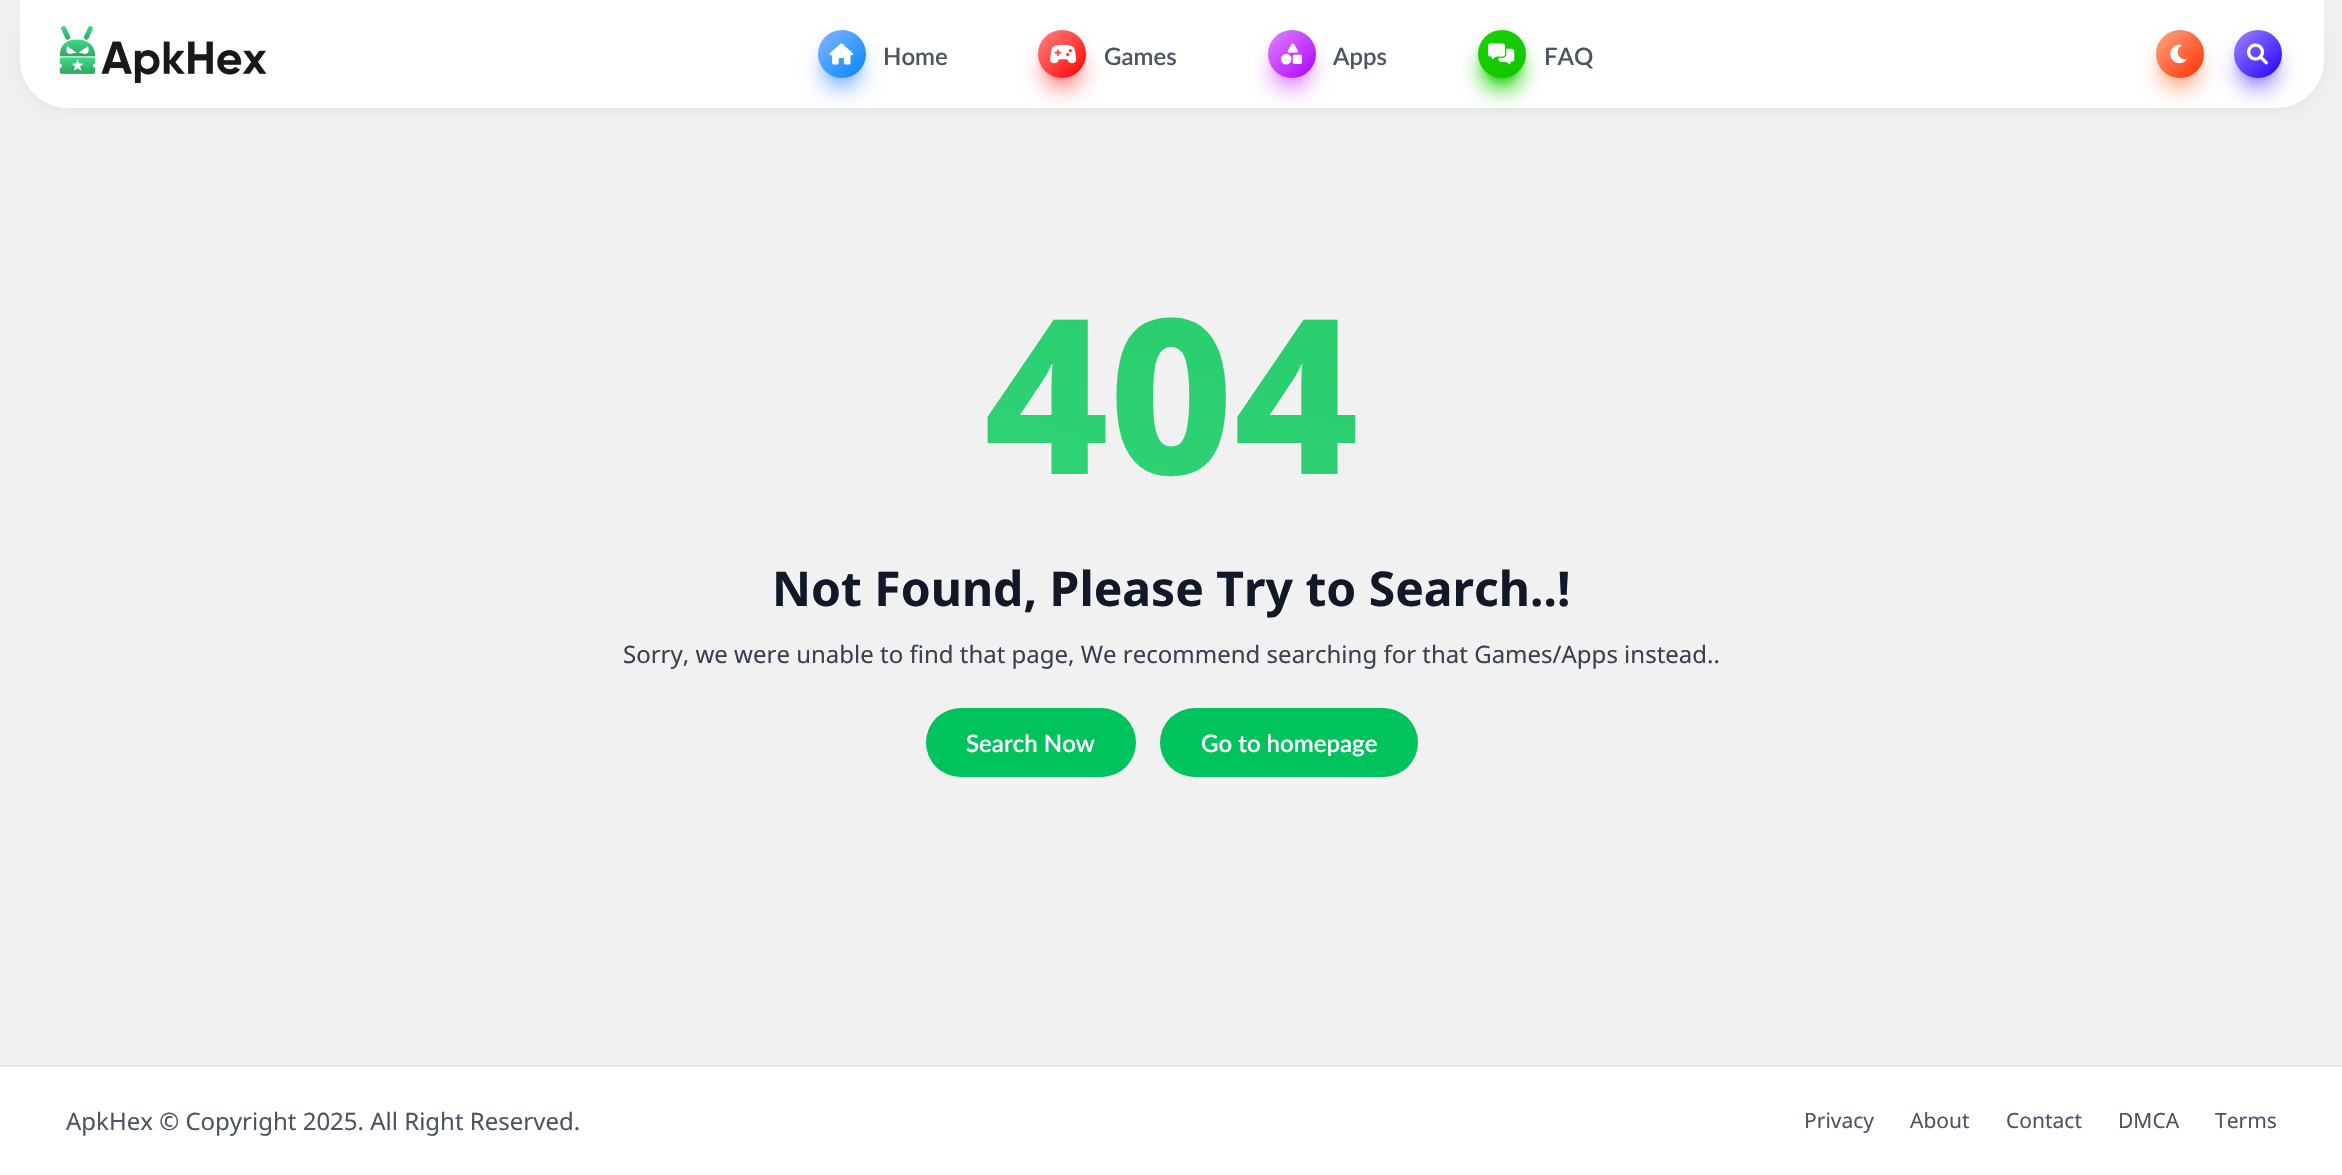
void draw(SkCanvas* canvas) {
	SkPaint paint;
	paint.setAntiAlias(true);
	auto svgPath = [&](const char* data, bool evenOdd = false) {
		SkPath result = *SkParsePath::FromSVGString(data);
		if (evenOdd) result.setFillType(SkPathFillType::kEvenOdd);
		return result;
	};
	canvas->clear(0xfff1f1f1);
	paint.setColor(0x0d000000);
	paint.setMaskFilter(SkMaskFilter::MakeBlur(kNormal_SkBlurStyle, 7.5));
	canvas->drawRoundRect(SkRect::MakeXYWH(20, 3, 2304, 108), 48, 48, paint);
	paint.setMaskFilter(nullptr);
	paint.setColor(0xffffffff);
	canvas->drawPath(svgPath("M20 0H2324V60C2324 86.5 2302.5 108 2276 108H68C41.5 108 20 86.5 20 60Z"), paint);
	canvas->drawImageRect(SkImages::DeferredFromEncodedData(SkData::MakeFromFileName("img1.png")), SkRect::MakeXYWH(59, 25, 208, 59), SkSamplingOptions());
	paint.setColor(0xff85b6ff);
	paint.setMaskFilter(SkMaskFilter::MakeBlur(kNormal_SkBlurStyle, 4.5));
	canvas->drawRoundRect(SkRect::MakeXYWH(824, 42, 36, 36), 18, 18, paint);
	paint.setMaskFilter(nullptr);
	paint.setMaskFilter(SkMaskFilter::MakeBlur(kNormal_SkBlurStyle, 11));
	canvas->drawRoundRect(SkRect::MakeXYWH(822, 50, 39, 39), 19.5, 19.5, paint);
	paint.setMaskFilter(nullptr);
	{
		const SkColor colors[] = {0xff85b6ff, 0xff0085ff};
		const float stops[] = {0, 1};
		const SkPoint ends[] = {{818, 30}, {866, 78}};
		paint.setShader(SkGradientShader::MakeLinear(ends, colors, stops, 2, SkTileMode::kClamp));
		paint.setAlpha(255);
	}
	canvas->drawCircle(842, 54, 24, paint);
	canvas->drawImageRect(SkImages::DeferredFromEncodedData(SkData::MakeFromFileName("img2.png")), SkRect::MakeXYWH(829, 43, 25, 22), SkSamplingOptions());
	SkFont f1(fontMgr->matchFamilyStyle("Lato", SkFontStyle(600, SkFontStyle::kNormal_Width, SkFontStyle::kUpright_Slant)), 24);
	f1.setSubpixel(true);
	paint.setShader(nullptr);
	paint.setColor(0xff4b5563);
	canvas->drawString("Home", 883, 65, f1, paint);
	paint.setColor(0xffff8585);
	paint.setMaskFilter(SkMaskFilter::MakeBlur(kNormal_SkBlurStyle, 4.5));
	canvas->drawRoundRect(SkRect::MakeXYWH(1044, 42, 36, 36), 18, 18, paint);
	paint.setMaskFilter(nullptr);
	paint.setMaskFilter(SkMaskFilter::MakeBlur(kNormal_SkBlurStyle, 11));
	canvas->drawRoundRect(SkRect::MakeXYWH(1043, 50, 39, 39), 19.5, 19.5, paint);
	paint.setMaskFilter(nullptr);
	{
		const SkColor colors[] = {0xffff8585, 0xffff0000};
		const float stops[] = {0, 1};
		const SkPoint ends[] = {{1038, 30}, {1086, 78}};
		paint.setShader(SkGradientShader::MakeLinear(ends, colors, stops, 2, SkTileMode::kClamp));
		paint.setAlpha(255);
	}
	canvas->drawCircle(1062, 54, 24, paint);
	canvas->drawImageRect(SkImages::DeferredFromEncodedData(SkData::MakeFromFileName("img3.png")), SkRect::MakeXYWH(1050, 44, 27, 20), SkSamplingOptions());
	paint.setShader(nullptr);
	paint.setColor(0xff4b5563);
	canvas->drawString("Games", 1104, 65, f1, paint);
	paint.setColor(0xffdf85ff);
	paint.setMaskFilter(SkMaskFilter::MakeBlur(kNormal_SkBlurStyle, 4.5));
	canvas->drawRoundRect(SkRect::MakeXYWH(1274, 42, 36, 36), 18, 18, paint);
	paint.setMaskFilter(nullptr);
	paint.setMaskFilter(SkMaskFilter::MakeBlur(kNormal_SkBlurStyle, 11));
	canvas->drawRoundRect(SkRect::MakeXYWH(1272, 50, 39, 39), 19.5, 19.5, paint);
	paint.setMaskFilter(nullptr);
	{
		const SkColor colors[] = {0xffdf85ff, 0xffad00ff};
		const float stops[] = {0, 1};
		const SkPoint ends[] = {{1268, 30}, {1316, 78}};
		paint.setShader(SkGradientShader::MakeLinear(ends, colors, stops, 2, SkTileMode::kClamp));
		paint.setAlpha(255);
	}
	canvas->drawCircle(1292, 54, 24, paint);
	canvas->drawImageRect(SkImages::DeferredFromEncodedData(SkData::MakeFromFileName("img4.png")), SkRect::MakeXYWH(1281, 43, 21, 22), SkSamplingOptions());
	paint.setShader(nullptr);
	paint.setColor(0xff4b5563);
	canvas->drawString("Apps", 1333, 65, f1, paint);
	paint.setColor(0xff16d300);
	paint.setMaskFilter(SkMaskFilter::MakeBlur(kNormal_SkBlurStyle, 4.5));
	canvas->drawRoundRect(SkRect::MakeXYWH(1484, 42, 36, 36), 18, 18, paint);
	paint.setMaskFilter(nullptr);
	paint.setMaskFilter(SkMaskFilter::MakeBlur(kNormal_SkBlurStyle, 11));
	canvas->drawRoundRect(SkRect::MakeXYWH(1482, 50, 39, 39), 19.5, 19.5, paint);
	paint.setMaskFilter(nullptr);
	{
		const SkColor colors[] = {0xff16d300, 0xff14c300};
		const float stops[] = {0, 1};
		const SkPoint ends[] = {{1478, 30}, {1526, 78}};
		paint.setShader(SkGradientShader::MakeLinear(ends, colors, stops, 2, SkTileMode::kClamp));
		paint.setAlpha(255);
	}
	canvas->drawCircle(1502, 54, 24, paint);
	canvas->drawImageRect(SkImages::DeferredFromEncodedData(SkData::MakeFromFileName("img5.png")), SkRect::MakeXYWH(1488, 43, 27, 22), SkSamplingOptions());
	paint.setShader(nullptr);
	paint.setColor(0xff4b5563);
	canvas->drawString("FAQ", 1544, 65, f1, paint);
	paint.setColor(0xffffa985);
	paint.setMaskFilter(SkMaskFilter::MakeBlur(kNormal_SkBlurStyle, 4.5));
	canvas->drawRoundRect(SkRect::MakeXYWH(2162, 42, 36, 36), 18, 18, paint);
	paint.setMaskFilter(nullptr);
	paint.setMaskFilter(SkMaskFilter::MakeBlur(kNormal_SkBlurStyle, 11));
	canvas->drawRoundRect(SkRect::MakeXYWH(2160, 50, 39, 39), 19.5, 19.5, paint);
	paint.setMaskFilter(nullptr);
	{
		const SkColor colors[] = {0xffffa985, 0xffff2e00};
		const float stops[] = {0, 1};
		const SkPoint ends[] = {{2156, 30}, {2204, 78}};
		paint.setShader(SkGradientShader::MakeLinear(ends, colors, stops, 2, SkTileMode::kClamp));
		paint.setAlpha(255);
	}
	canvas->drawCircle(2180, 54, 24, paint);
	canvas->drawImageRect(SkImages::DeferredFromEncodedData(SkData::MakeFromFileName("img6.png")), SkRect::MakeXYWH(2170, 44, 17, 20), SkSamplingOptions());
	paint.setShader(nullptr);
	paint.setColor(0xff9d85ff);
	paint.setMaskFilter(SkMaskFilter::MakeBlur(kNormal_SkBlurStyle, 4.5));
	canvas->drawRoundRect(SkRect::MakeXYWH(2240, 42, 36, 36), 18, 18, paint);
	paint.setMaskFilter(nullptr);
	paint.setMaskFilter(SkMaskFilter::MakeBlur(kNormal_SkBlurStyle, 11));
	canvas->drawRoundRect(SkRect::MakeXYWH(2238, 50, 39, 39), 19.5, 19.5, paint);
	paint.setMaskFilter(nullptr);
	{
		const SkColor colors[] = {0xff9d85ff, 0xff2400ff};
		const float stops[] = {0, 1};
		const SkPoint ends[] = {{2234, 30}, {2282, 78}};
		paint.setShader(SkGradientShader::MakeLinear(ends, colors, stops, 2, SkTileMode::kClamp));
		paint.setAlpha(255);
	}
	canvas->drawCircle(2258, 54, 24, paint);
	canvas->drawImageRect(SkImages::DeferredFromEncodedData(SkData::MakeFromFileName("img7.png")), SkRect::MakeXYWH(2247, 43, 21, 22), SkSamplingOptions());
	SkFont f2(fontMgr->matchFamilyStyle("Noto Sans", SkFontStyle(800, SkFontStyle::kNormal_Width, SkFontStyle::kUpright_Slant)), 216);
	f2.setSubpixel(true);
	{
		const SkColor colors[] = {0xff36db84, 0xff22c55e};
		const float stops[] = {0, 1};
		const SkPoint ends[] = {{985, 903}, {1358, -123}};
		paint.setShader(SkGradientShader::MakeLinear(ends, colors, stops, 2, SkTileMode::kClamp));
		paint.setAlpha(255);
	}
	canvas->drawString("404", 984, 474, f2, paint);
	SkFont f3(fontMgr->matchFamilyStyle("Noto Sans", SkFontStyle::Bold()), 48);
	f3.setSubpixel(true);
	paint.setShader(nullptr);
	paint.setColor(0xff111827);
	canvas->drawString("Not Found, Please Try to Search..!", 772, 606, f3, paint);
	SkFont f4(fontMgr->matchFamilyStyle("Noto Sans", SkFontStyle::Normal()), 24);
	f4.setSubpixel(true);
	paint.setColor(0xff374151);
	canvas->drawString("Sorry, we were unable to find that page, We recommend searching for that Games/Apps instead..", 623, 663, f4, paint);
	paint.setColor(0xff00c35e);
	canvas->drawRoundRect(SkRect::MakeXYWH(926, 708, 210, 69), 34.5, 34.5, paint);
	paint.setColor(0xffffffff);
	canvas->drawString("Search Now", 966, 752, f1, paint);
	paint.setColor(0xff00c35e);
	canvas->drawRoundRect(SkRect::MakeXYWH(1160, 708, 258, 69), 34.5, 34.5, paint);
	paint.setColor(0xffffffff);
	canvas->drawString("Go to homepage", 1201, 752, f1, paint);
	paint.setColor(0xffe5e7eb);
	canvas->drawRect(SkRect::MakeXYWH(0, 1065, 2342, 2), paint);
	paint.setColor(0xffffffff);
	canvas->drawRect(SkRect::MakeXYWH(0, 1067, 2342, 108), paint);
	paint.setColor(0xff4b5563);
	canvas->drawString("ApkHex © Copyright 2025. All Right Reserved.", 66, 1130, f4, paint);
	SkFont f5(fontMgr->matchFamilyStyle("Noto Sans", SkFontStyle::Normal()), 21);
	f5.setSubpixel(true);
	canvas->drawString("Privacy", 1804, 1128, f5, paint);
	canvas->drawString("About", 1910, 1128, f5, paint);
	canvas->drawString("Contact", 2006, 1128, f5, paint);
	canvas->drawString("DMCA", 2118, 1128, f5, paint);
	canvas->drawString("Terms", 2215, 1128, f5, paint);
}
